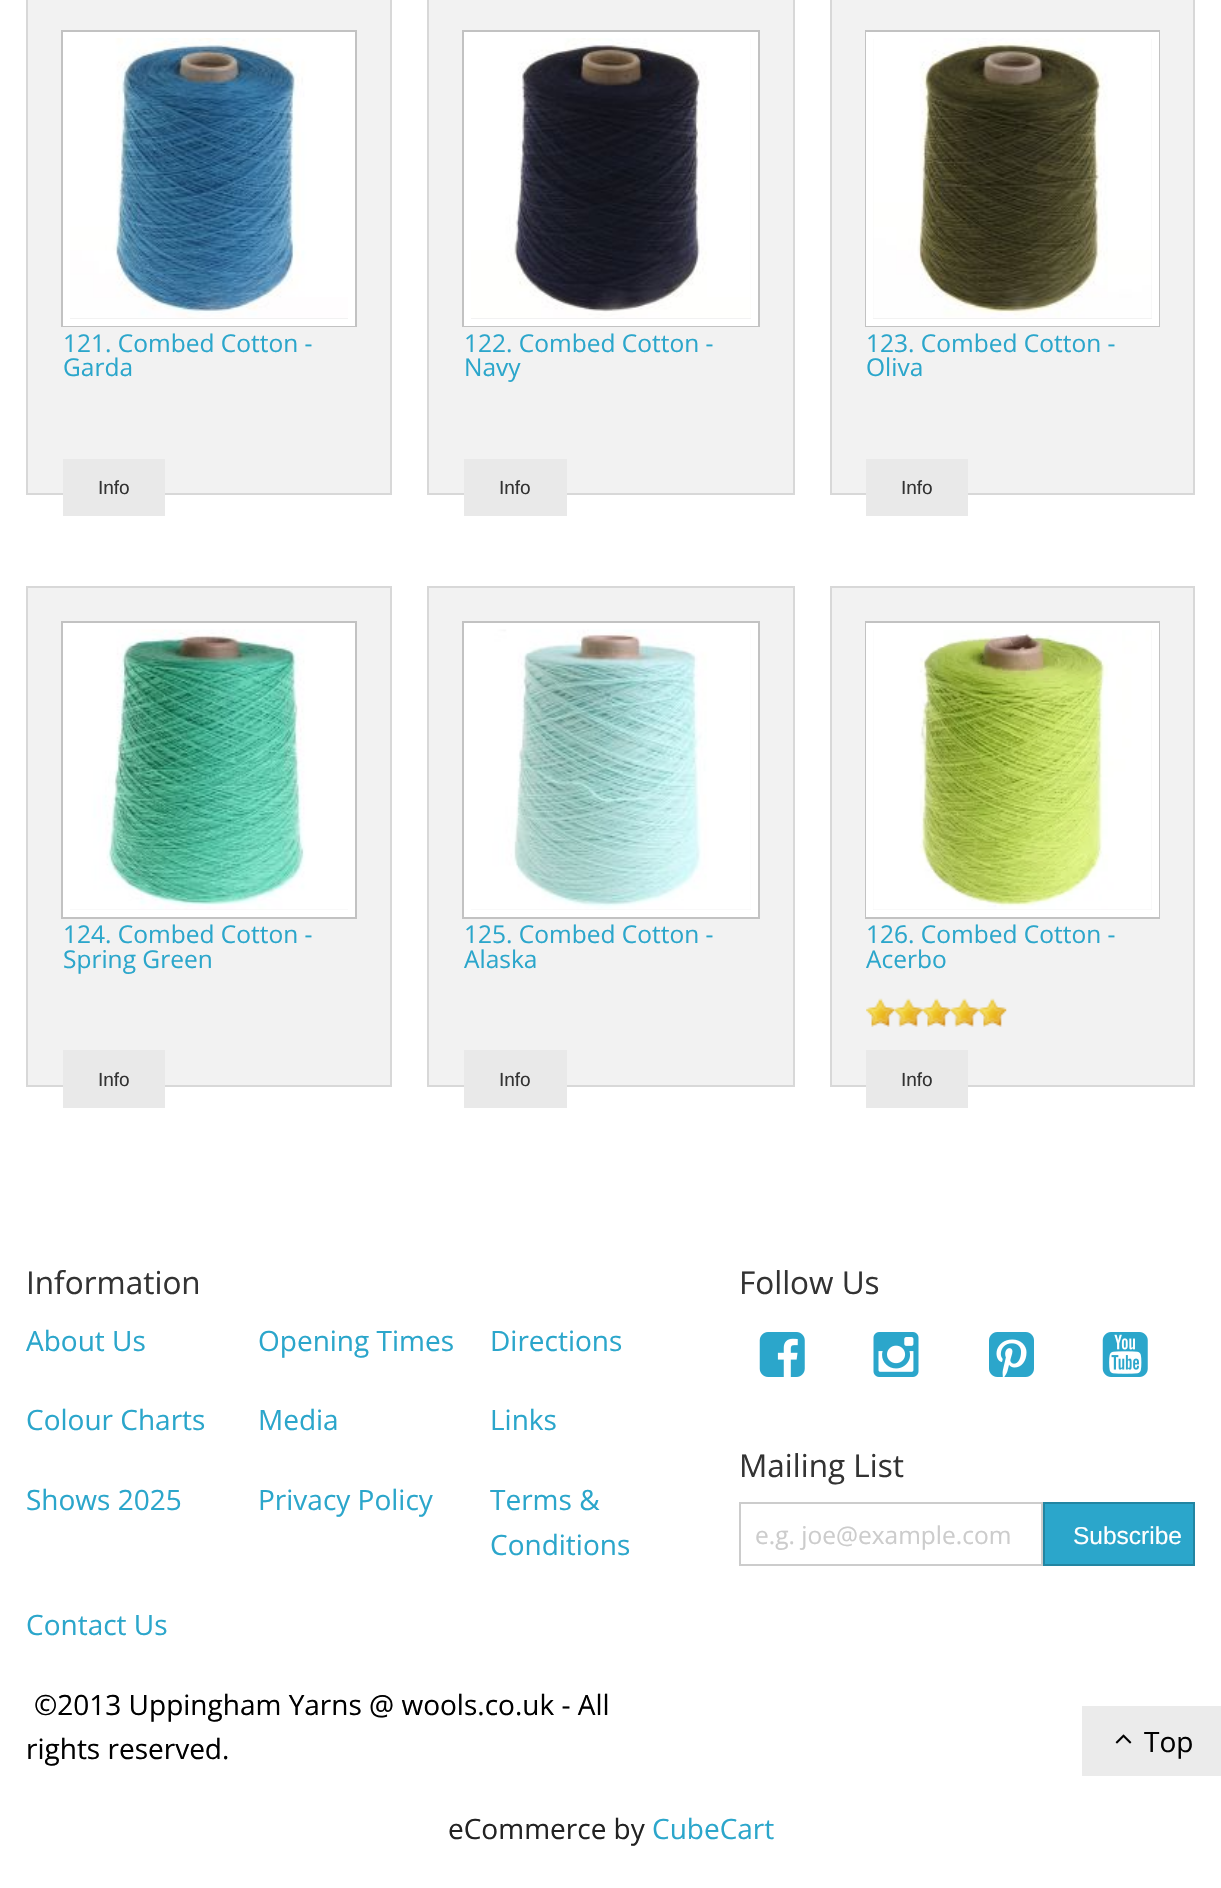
void draw(SkCanvas* canvas) {
	SkPaint paint;
	paint.setAntiAlias(true);
	canvas->clear(0xffffffff);
	paint.setColor(0xfff2f2f2);
	canvas->drawRect(SkRect::MakeXYWH(27, -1, 364, 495), paint);
	paint.setStroke(true);
	paint.setStrokeWidth(2);
	paint.setColor(0xffd8d8d8);
	canvas->drawRect(SkRect::MakeXYWH(27, -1, 364, 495), paint);
	paint.setColor(0xffc2c2c2);
	canvas->drawRect(SkRect::MakeXYWH(62, 31, 294, 295), paint);
	paint.setStrokeWidth(7);
	paint.setColor(0xffffffff);
	canvas->drawRect(SkRect::MakeXYWH(66.5, 35.5, 285, 287), paint);
	canvas->drawImageRect(SkImages::DeferredFromEncodedData(SkData::MakeFromFileName("img1.png")), SkRect::MakeXYWH(70, 38, 278, 280), SkSamplingOptions());
	SkFont f1(fontMgr->matchFamilyStyle("Open Sans", SkFontStyle::Normal()), 24.5);
	f1.setSubpixel(true);
	paint.setStroke(false);
	paint.setColor(0xff2ba6cb);
	canvas->drawString("121. Combed Cotton -", 63, 352, f1, paint);
	canvas->drawString("Garda", 63, 376, f1, paint);
	paint.setColor(0xffe9e9e9);
	canvas->drawRect(SkRect::MakeXYWH(63, 459, 102, 57), paint);
	SkFont f2(fontMgr->matchFamilyStyle("Liberation Sans", SkFontStyle::Normal()), 19);
	f2.setSubpixel(true);
	paint.setColor(0xff333333);
	canvas->drawString("Info", 98, 494, f2, paint);
	paint.setColor(0xfff2f2f2);
	canvas->drawRect(SkRect::MakeXYWH(428, -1, 366, 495), paint);
	paint.setStroke(true);
	paint.setStrokeWidth(2);
	paint.setColor(0xffd8d8d8);
	canvas->drawRect(SkRect::MakeXYWH(428, -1, 366, 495), paint);
	paint.setColor(0xffc2c2c2);
	canvas->drawRect(SkRect::MakeXYWH(463, 31, 296, 295), paint);
	paint.setStrokeWidth(7);
	paint.setColor(0xffffffff);
	canvas->drawRect(SkRect::MakeXYWH(467.5, 35.5, 287, 287), paint);
	canvas->drawImageRect(SkImages::DeferredFromEncodedData(SkData::MakeFromFileName("img2.png")), SkRect::MakeXYWH(471, 38, 280, 280), SkSamplingOptions());
	paint.setStroke(false);
	paint.setColor(0xff2ba6cb);
	canvas->drawString("122. Combed Cotton -", 464, 352, f1, paint);
	canvas->drawString("Navy", 464, 376, f1, paint);
	paint.setColor(0xffe9e9e9);
	canvas->drawRect(SkRect::MakeXYWH(464, 459, 103, 57), paint);
	paint.setColor(0xff333333);
	canvas->drawString("Info", 499, 494, f2, paint);
	paint.setColor(0xfff2f2f2);
	canvas->drawRect(SkRect::MakeXYWH(831, -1, 363, 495), paint);
	paint.setStroke(true);
	paint.setStrokeWidth(2);
	paint.setColor(0xffd8d8d8);
	canvas->drawRect(SkRect::MakeXYWH(831, -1, 363, 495), paint);
	paint.setColor(0xffc2c2c2);
	canvas->drawRect(SkRect::MakeXYWH(866, 31, 293, 295), paint);
	paint.setStrokeWidth(7);
	paint.setColor(0xffffffff);
	canvas->drawRect(SkRect::MakeXYWH(869.5, 35.5, 286, 287), paint);
	canvas->drawImageRect(SkImages::DeferredFromEncodedData(SkData::MakeFromFileName("img3.png")), SkRect::MakeXYWH(873, 38, 279, 280), SkSamplingOptions());
	paint.setStroke(false);
	paint.setColor(0xff2ba6cb);
	canvas->drawString("123. Combed Cotton -", 866, 352, f1, paint);
	canvas->drawString("Oliva", 866, 376, f1, paint);
	paint.setColor(0xffe9e9e9);
	canvas->drawRect(SkRect::MakeXYWH(866, 459, 102, 57), paint);
	paint.setColor(0xff333333);
	canvas->drawString("Info", 901, 494, f2, paint);
	paint.setColor(0xfff2f2f2);
	canvas->drawRect(SkRect::MakeXYWH(27, 587, 364, 499), paint);
	paint.setStroke(true);
	paint.setStrokeWidth(2);
	paint.setColor(0xffd8d8d8);
	canvas->drawRect(SkRect::MakeXYWH(27, 587, 364, 499), paint);
	paint.setColor(0xffc2c2c2);
	canvas->drawRect(SkRect::MakeXYWH(62, 622, 294, 296), paint);
	paint.setStrokeWidth(7);
	paint.setColor(0xffffffff);
	canvas->drawRect(SkRect::MakeXYWH(66.5, 626.5, 285, 287), paint);
	canvas->drawImageRect(SkImages::DeferredFromEncodedData(SkData::MakeFromFileName("img4.png")), SkRect::MakeXYWH(70, 629, 278, 281), SkSamplingOptions());
	paint.setStroke(false);
	paint.setColor(0xff2ba6cb);
	canvas->drawString("124. Combed Cotton -", 63, 943, f1, paint);
	canvas->drawString("Spring Green", 63, 968, f1, paint);
	paint.setColor(0xffe9e9e9);
	canvas->drawRect(SkRect::MakeXYWH(63, 1050, 102, 58), paint);
	paint.setColor(0xff333333);
	canvas->drawString("Info", 98, 1086, f2, paint);
	paint.setColor(0xfff2f2f2);
	canvas->drawRect(SkRect::MakeXYWH(428, 587, 366, 499), paint);
	paint.setStroke(true);
	paint.setStrokeWidth(2);
	paint.setColor(0xffd8d8d8);
	canvas->drawRect(SkRect::MakeXYWH(428, 587, 366, 499), paint);
	paint.setColor(0xffc2c2c2);
	canvas->drawRect(SkRect::MakeXYWH(463, 622, 296, 296), paint);
	paint.setStrokeWidth(7);
	paint.setColor(0xffffffff);
	canvas->drawRect(SkRect::MakeXYWH(467.5, 626.5, 287, 287), paint);
	canvas->drawImageRect(SkImages::DeferredFromEncodedData(SkData::MakeFromFileName("img5.png")), SkRect::MakeXYWH(471, 629, 280, 281), SkSamplingOptions());
	paint.setStroke(false);
	paint.setColor(0xff2ba6cb);
	canvas->drawString("125. Combed Cotton -", 464, 943, f1, paint);
	canvas->drawString("Alaska", 464, 968, f1, paint);
	paint.setColor(0xffe9e9e9);
	canvas->drawRect(SkRect::MakeXYWH(464, 1050, 103, 58), paint);
	paint.setColor(0xff333333);
	canvas->drawString("Info", 499, 1086, f2, paint);
	paint.setColor(0xfff2f2f2);
	canvas->drawRect(SkRect::MakeXYWH(831, 587, 363, 499), paint);
	paint.setStroke(true);
	paint.setStrokeWidth(2);
	paint.setColor(0xffd8d8d8);
	canvas->drawRect(SkRect::MakeXYWH(831, 587, 363, 499), paint);
	paint.setColor(0xffc2c2c2);
	canvas->drawRect(SkRect::MakeXYWH(866, 622, 293, 296), paint);
	paint.setStrokeWidth(7);
	paint.setColor(0xffffffff);
	canvas->drawRect(SkRect::MakeXYWH(869.5, 626.5, 286, 287), paint);
	canvas->drawImageRect(SkImages::DeferredFromEncodedData(SkData::MakeFromFileName("img6.png")), SkRect::MakeXYWH(873, 630, 279, 280), SkSamplingOptions());
	paint.setStroke(false);
	paint.setColor(0xff2ba6cb);
	canvas->drawString("126. Combed Cotton -", 866, 943, f1, paint);
	canvas->drawString("Acerbo", 866, 968, f1, paint);
	canvas->drawImageRect(SkImages::DeferredFromEncodedData(SkData::MakeFromFileName("img7.png")), SkRect::MakeXYWH(866, 998, 29, 29), SkSamplingOptions());
	canvas->drawImageRect(SkImages::DeferredFromEncodedData(SkData::MakeFromFileName("img8.png")), SkRect::MakeXYWH(894, 998, 29, 29), SkSamplingOptions());
	canvas->drawImageRect(SkImages::DeferredFromEncodedData(SkData::MakeFromFileName("img9.png")), SkRect::MakeXYWH(922, 998, 29, 29), SkSamplingOptions());
	canvas->drawImageRect(SkImages::DeferredFromEncodedData(SkData::MakeFromFileName("img8.png")), SkRect::MakeXYWH(950, 998, 29, 29), SkSamplingOptions());
	canvas->drawImageRect(SkImages::DeferredFromEncodedData(SkData::MakeFromFileName("img9.png")), SkRect::MakeXYWH(978, 998, 29, 29), SkSamplingOptions());
	paint.setColor(0xffe9e9e9);
	canvas->drawRect(SkRect::MakeXYWH(866, 1050, 102, 58), paint);
	paint.setColor(0xff333333);
	canvas->drawString("Info", 901, 1086, f2, paint);
	paint.setColor(0xffebebeb);
	canvas->drawRect(SkRect::MakeXYWH(1082, 1706, 139, 70), paint);
	canvas->drawImageRect(SkImages::DeferredFromEncodedData(SkData::MakeFromFileName("img10.png")), SkRect::MakeXYWH(1115, 1734, 17, 10), SkSamplingOptions());
	SkFont f3(fontMgr->matchFamilyStyle("Open Sans", SkFontStyle::Normal()), 28);
	f3.setSubpixel(true);
	paint.setColor(0xff000000);
	canvas->drawString("Top", 1144, 1752, f3, paint);
	SkFont f4(fontMgr->matchFamilyStyle("Open Sans", SkFontStyle::Normal()), 31.5);
	f4.setSubpixel(true);
	paint.setColor(0xff333333);
	canvas->drawString("Information", 26, 1294, f4, paint);
	paint.setColor(0xff2ba6cb);
	canvas->drawString("About Us", 26, 1351, f3, paint);
	canvas->drawString("Opening Times", 258, 1351, f3, paint);
	canvas->drawString("Directions", 490, 1351, f3, paint);
	canvas->drawString("Colour Charts", 26, 1430, f3, paint);
	canvas->drawString("Media", 258, 1430, f3, paint);
	canvas->drawString("Links", 490, 1430, f3, paint);
	canvas->drawString("Shows 2025", 26, 1510, f3, paint);
	canvas->drawString("Privacy Policy", 258, 1510, f3, paint);
	canvas->drawString("Terms &", 490, 1510, f3, paint);
	canvas->drawString("Conditions", 490, 1555, f3, paint);
	canvas->drawString("Contact Us", 26, 1635, f3, paint);
	paint.setColor(0xff000000);
	canvas->drawString("©2013 Uppingham Yarns @ wools.co.uk - All", 34, 1715, f3, paint);
	canvas->drawString("rights reserved.", 26, 1759, f3, paint);
	paint.setColor(0xff333333);
	canvas->drawString("Follow Us", 739, 1294, f4, paint);
	canvas->drawImageRect(SkImages::DeferredFromEncodedData(SkData::MakeFromFileName("img11.png")), SkRect::MakeXYWH(759, 1332, 46, 45), SkSamplingOptions());
	canvas->drawImageRect(SkImages::DeferredFromEncodedData(SkData::MakeFromFileName("img12.png")), SkRect::MakeXYWH(873, 1332, 46, 45), SkSamplingOptions());
	canvas->drawImageRect(SkImages::DeferredFromEncodedData(SkData::MakeFromFileName("img13.png")), SkRect::MakeXYWH(989, 1332, 45, 45), SkSamplingOptions());
	canvas->drawImageRect(SkImages::DeferredFromEncodedData(SkData::MakeFromFileName("img14.png")), SkRect::MakeXYWH(1102, 1332, 46, 45), SkSamplingOptions());
	canvas->drawString("Mailing List", 739, 1477, f4, paint);
	paint.setStroke(true);
	paint.setStrokeWidth(2);
	paint.setColor(0xffcccccc);
	canvas->drawRect(SkRect::MakeXYWH(740, 1503, 302, 62), paint);
	paint.setStroke(false);
	canvas->drawString("e.g. joe@example.com", 755, 1544, f1, paint);
	paint.setColor(0xff2ba6cb);
	canvas->drawRect(SkRect::MakeXYWH(1044, 1503, 150, 62), paint);
	paint.setStroke(true);
	paint.setColor(0xff2285a2);
	canvas->drawRect(SkRect::MakeXYWH(1044, 1503, 150, 62), paint);
	SkFont f5(fontMgr->matchFamilyStyle("Liberation Sans", SkFontStyle::Normal()), 24.5);
	f5.setSubpixel(true);
	paint.setStroke(false);
	paint.setColor(0xffffffff);
	canvas->drawString("Subscribe", 1073, 1544, f5, paint);
	paint.setColor(0xff222222);
	canvas->drawString("eCommerce by", 448, 1839, f3, paint);
	paint.setColor(0xff2ba6cb);
	canvas->drawString("CubeCart", 652, 1839, f3, paint);
}
